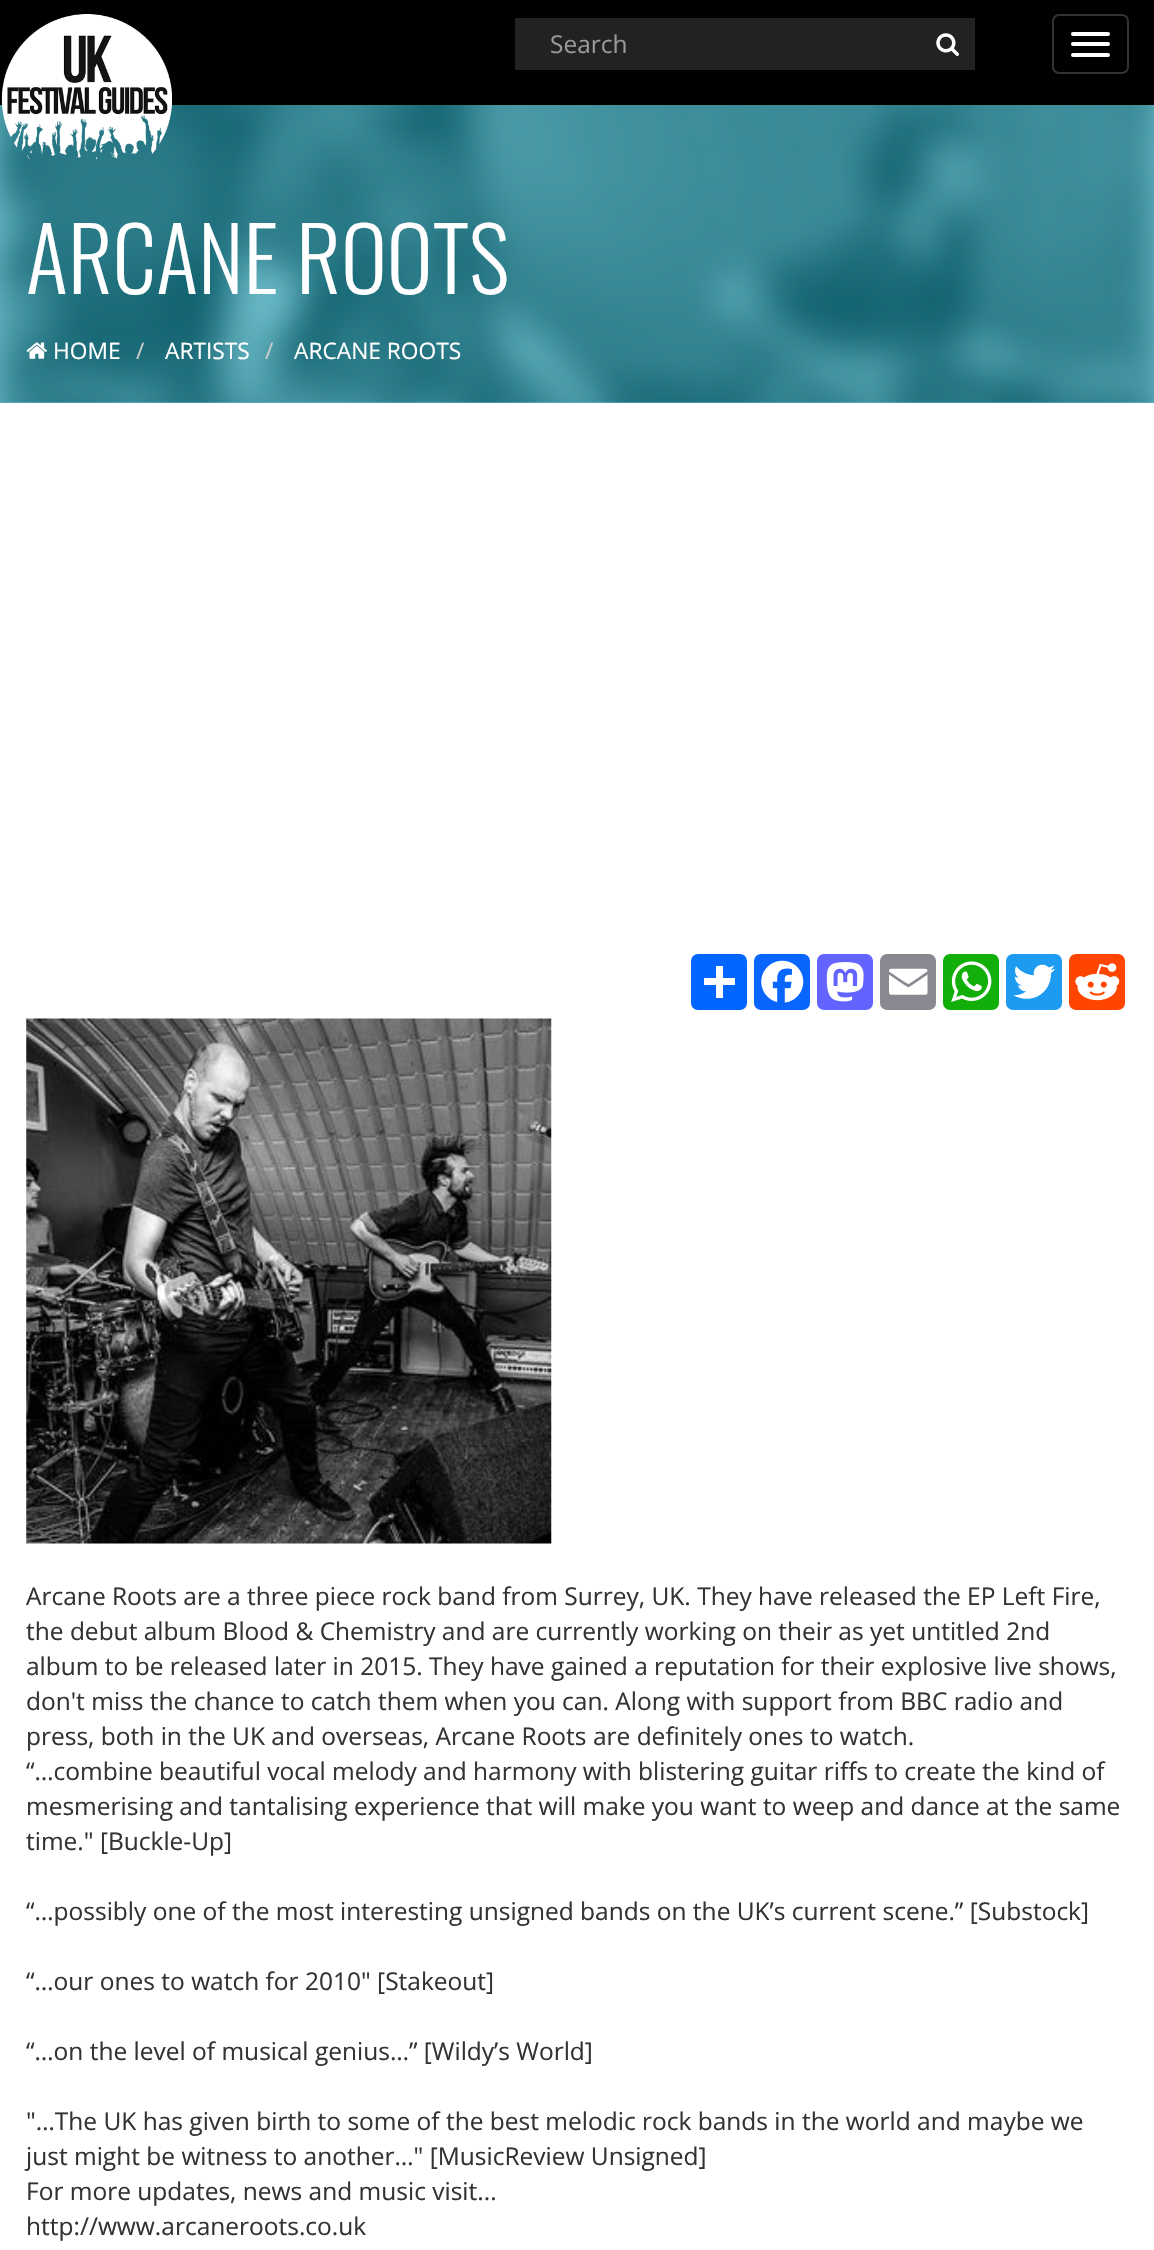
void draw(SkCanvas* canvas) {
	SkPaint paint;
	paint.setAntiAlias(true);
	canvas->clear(0xff6ebecc);
	paint.setColor(0xff000000);
	canvas->drawRect(SkRect::MakeXYWH(0, 0, 1154, 105), paint);
	canvas->drawImageRect(SkImages::DeferredFromEncodedData(SkData::MakeFromFileName("img3.png")), SkRect::MakeXYWH(0, 105, 1154, 298), SkSamplingOptions());
	canvas->drawImageRect(SkImages::DeferredFromEncodedData(SkData::MakeFromFileName("img1.png")), SkRect::MakeXYWH(1, 14, 171, 145), SkSamplingOptions());
	paint.setColor(0xff222222);
	canvas->drawRect(SkRect::MakeXYWH(515, 18, 460, 52), paint);
	canvas->drawImageRect(SkImages::DeferredFromEncodedData(SkData::MakeFromFileName("img2.png")), SkRect::MakeXYWH(936, 33, 23, 23), SkSamplingOptions());
	SkFont f1(fontMgr->matchFamilyStyle("Open Sans", SkFontStyle::Normal()), 24.5);
	f1.setSubpixel(true);
	paint.setColor(0xff999999);
	canvas->drawString("Search", 550, 53, f1, paint);
	paint.setStroke(true);
	paint.setStrokeWidth(2);
	paint.setColor(0xff333333);
	canvas->drawRoundRect(SkRect::MakeXYWH(1053, 15, 75, 58), 6, 6, paint);
	paint.setStroke(false);
	paint.setColor(0xffffffff);
	canvas->drawRoundRect(SkRect::MakeXYWH(1071, 32, 39, 4), 2, 2, paint);
	canvas->drawRoundRect(SkRect::MakeXYWH(1071, 42, 39, 4), 2, 2, paint);
	canvas->drawRoundRect(SkRect::MakeXYWH(1071, 53, 39, 4), 2, 2, paint);
	SkFont f2(fontMgr->matchFamilyStyle("Oswald", SkFontStyle(300, SkFontStyle::kNormal_Width, SkFontStyle::kUpright_Slant)), 87.5);
	f2.setSubpixel(true);
	canvas->drawString("ARCANE ROOTS", 26, 294, f2, paint);
	canvas->drawImageRect(SkImages::DeferredFromEncodedData(SkData::MakeFromFileName("img4.png")), SkRect::MakeXYWH(26, 342, 21, 17), SkSamplingOptions());
	SkFont f3(fontMgr->matchFamilyStyle("Open Sans", SkFontStyle::Normal()), 22.75);
	f3.setSubpixel(true);
	canvas->drawString("HOME", 53, 359, f3, paint);
	paint.setColor(0xffcccccc);
	canvas->drawString("/", 136, 359, f3, paint);
	paint.setColor(0xffffffff);
	canvas->drawString("ARTISTS", 165, 359, f3, paint);
	paint.setColor(0xffcccccc);
	canvas->drawString("/", 265, 359, f3, paint);
	paint.setColor(0xffffffff);
	canvas->drawString("ARCANE ROOTS", 294, 359, f3, paint);
	canvas->drawRect(SkRect::MakeXYWH(0, 403, 1154, 1847), paint);
	paint.setColor(0xff0166ff);
	canvas->drawRoundRect(SkRect::MakeXYWH(691, 954, 56, 56), 7, 7, paint);
	paint.setColor(0xffffffff);
	canvas->drawRect(SkRect::MakeXYWH(716, 966, 7, 32), paint);
	canvas->drawRect(SkRect::MakeXYWH(704, 978, 31, 7), paint);
	paint.setColor(0xff0866ff);
	canvas->drawRoundRect(SkRect::MakeXYWH(754, 954, 56, 56), 7, 7, paint);
	canvas->drawImageRect(SkImages::DeferredFromEncodedData(SkData::MakeFromFileName("img5.png")), SkRect::MakeXYWH(761, 960, 43, 43), SkSamplingOptions());
	paint.setColor(0xff6364ff);
	canvas->drawRoundRect(SkRect::MakeXYWH(817, 954, 56, 56), 7, 7, paint);
	canvas->drawImageRect(SkImages::DeferredFromEncodedData(SkData::MakeFromFileName("img6.png")), SkRect::MakeXYWH(826, 962, 38, 40), SkSamplingOptions());
	paint.setColor(0xff888990);
	canvas->drawRoundRect(SkRect::MakeXYWH(880, 954, 56, 56), 7, 7, paint);
	canvas->drawImageRect(SkImages::DeferredFromEncodedData(SkData::MakeFromFileName("img7.png")), SkRect::MakeXYWH(889, 968, 39, 27), SkSamplingOptions());
	paint.setColor(0xff12af0a);
	canvas->drawRoundRect(SkRect::MakeXYWH(943, 954, 56, 56), 7, 7, paint);
	canvas->drawImageRect(SkImages::DeferredFromEncodedData(SkData::MakeFromFileName("img8.png")), SkRect::MakeXYWH(951, 961, 41, 41), SkSamplingOptions());
	paint.setColor(0xff1d9bf0);
	canvas->drawRoundRect(SkRect::MakeXYWH(1006, 954, 56, 56), 7, 7, paint);
	canvas->drawImageRect(SkImages::DeferredFromEncodedData(SkData::MakeFromFileName("img9.png")), SkRect::MakeXYWH(1013, 964, 43, 35), SkSamplingOptions());
	paint.setColor(0xffff4500);
	canvas->drawRoundRect(SkRect::MakeXYWH(1069, 954, 56, 56), 7, 7, paint);
	canvas->drawImageRect(SkImages::DeferredFromEncodedData(SkData::MakeFromFileName("img10.png")), SkRect::MakeXYWH(1075, 963, 45, 38), SkSamplingOptions());
	canvas->drawImageRect(SkImages::DeferredFromEncodedData(SkData::MakeFromFileName("img11.png")), SkRect::MakeXYWH(26, 1018, 526, 526), SkSamplingOptions());
	paint.setColor(0xff333333);
	canvas->drawString("Arcane Roots are a three piece rock band from Surrey, UK. They have released the EP Left Fire,", 26, 1605, f1, paint);
	canvas->drawString("the debut album Blood & Chemistry and are currently working on their as yet untitled 2nd", 26, 1640, f1, paint);
	canvas->drawString("album to be released later in 2015. They have gained a reputation for their explosive live shows,", 26, 1675, f1, paint);
	canvas->drawString("don't miss the chance to catch them when you can. Along with support from BBC radio and", 26, 1710, f1, paint);
	canvas->drawString("press, both in the UK and overseas, Arcane Roots are definitely ones to watch.", 26, 1745, f1, paint);
	canvas->drawString("“…combine beautiful vocal melody and harmony with blistering guitar riffs to create the kind of", 26, 1780, f1, paint);
	canvas->drawString("mesmerising and tantalising experience that will make you want to weep and dance at the same", 26, 1815, f1, paint);
	canvas->drawString("time.\" [Buckle-Up]", 26, 1850, f1, paint);
	canvas->drawString("“…possibly one of the most interesting unsigned bands on the UK’s current scene.” [Substock]", 26, 1920, f1, paint);
	canvas->drawString("“…our ones to watch for 2010\" [Stakeout]", 26, 1990, f1, paint);
	canvas->drawString("“…on the level of musical genius…” [Wildy’s World]", 26, 2060, f1, paint);
	canvas->drawString("\"…The UK has given birth to some of the best melodic rock bands in the world and maybe we", 26, 2130, f1, paint);
	canvas->drawString("just might be witness to another…\" [MusicReview Unsigned]", 26, 2165, f1, paint);
	canvas->drawString("For more updates, news and music visit...", 26, 2200, f1, paint);
	canvas->drawString("http://www.arcaneroots.co.uk", 26, 2235, f1, paint);
}
